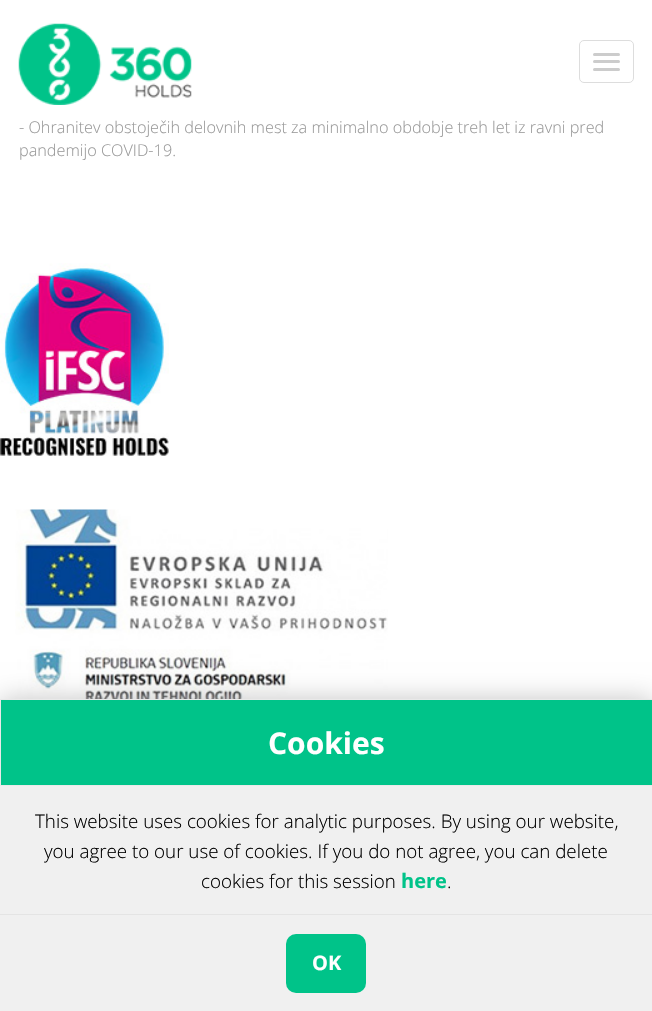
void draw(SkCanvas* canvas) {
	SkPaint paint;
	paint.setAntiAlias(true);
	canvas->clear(0xffffffff);
	canvas->drawImageRect(SkImages::DeferredFromEncodedData(SkData::MakeFromFileName("img1.png")), SkRect::MakeXYWH(18, 23, 174, 82), SkSamplingOptions());
	paint.setStroke(true);
	paint.setStrokeWidth(1);
	paint.setColor(0xffdddddd);
	canvas->drawRoundRect(SkRect::MakeXYWH(579.5, 40.5, 54, 42), 4.5, 4.5, paint);
	paint.setStroke(false);
	paint.setColor(0xffcccccc);
	canvas->drawRoundRect(SkRect::MakeXYWH(593, 53, 27, 3), 1.5, 1.5, paint);
	canvas->drawRoundRect(SkRect::MakeXYWH(593, 60, 27, 3), 1.5, 1.5, paint);
	canvas->drawRoundRect(SkRect::MakeXYWH(593, 68, 27, 3), 1.5, 1.5, paint);
	SkFont f1(fontMgr->matchFamilyStyle("Open Sans", SkFontStyle(300, SkFontStyle::kNormal_Width, SkFontStyle::kUpright_Slant)), 16.25);
	f1.setSubpixel(true);
	paint.setColor(0xff9a9a9a);
	canvas->drawString("- Ohranitev obstoječih delovnih mest za minimalno obdobje treh let iz ravni pred", 19, 133, f1, paint);
	canvas->drawString("pandemijo COVID-19.", 19, 156, f1, paint);
	canvas->drawImageRect(SkImages::DeferredFromEncodedData(SkData::MakeFromFileName("img2.png")), SkRect::MakeXYWH(0, 263, 169, 193), SkSamplingOptions());
	canvas->drawImageRect(SkImages::DeferredFromEncodedData(SkData::MakeFromFileName("img3.png")), SkRect::MakeXYWH(15, 509, 373, 190), SkSamplingOptions());
	paint.setColor(0xffc6c6c6);
	paint.setMaskFilter(SkMaskFilter::MakeBlur(kNormal_SkBlurStyle, 12.5));
	canvas->drawRect(SkRect::MakeXYWH(0, 699, 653, 312), paint);
	paint.setMaskFilter(nullptr);
	paint.setColor(0xff00c389);
	canvas->drawRect(SkRect::MakeXYWH(0.5, 699.5, 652, 86), paint);
	paint.setStroke(true);
	paint.setColor(0xffe9e9e9);
	canvas->drawRect(SkRect::MakeXYWH(0.5, 699.5, 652, 86), paint);
	SkFont f2(fontMgr->matchFamilyStyle("Open Sans", SkFontStyle::Bold()), 30);
	f2.setSubpixel(true);
	paint.setStroke(false);
	paint.setColor(0xffffffff);
	canvas->drawString("Cookies", 268, 754, f2, paint);
	paint.setColor(0xfff0f0f0);
	canvas->drawRect(SkRect::MakeXYWH(0, 786, 652, 128), paint);
	paint.setColor(0xffe4e4e4);
	canvas->drawRect(SkRect::MakeXYWH(0, 914, 652, 1), paint);
	SkFont f3(fontMgr->matchFamilyStyle("Open Sans", SkFontStyle(300, SkFontStyle::kNormal_Width, SkFontStyle::kUpright_Slant)), 18.75);
	f3.setSubpixel(true);
	paint.setColor(0xff000000);
	canvas->drawString("This website uses cookies for analytic purposes. By using our website,", 35, 828, f3, paint);
	canvas->drawString("you agree to our use of cookies. If you do not agree, you can delete", 44, 858, f3, paint);
	canvas->drawString("cookies for this session", 201, 888, f3, paint);
	SkFont f4(fontMgr->matchFamilyStyle("Open Sans", SkFontStyle::Bold()), 20);
	f4.setSubpixel(true);
	paint.setColor(0xff00c389);
	canvas->drawString("here", 401, 888, f4, paint);
	paint.setColor(0xff000000);
	canvas->drawString(".", 447, 888, f3, paint);
	paint.setColor(0xfff0f0f0);
	canvas->drawRect(SkRect::MakeXYWH(0, 915, 652, 96), paint);
	paint.setColor(0xff00c389);
	canvas->drawRoundRect(SkRect::MakeXYWH(286, 934, 80, 59), 10, 10, paint);
	paint.setColor(0xffffffff);
	canvas->drawString("OK", 312, 970, f4, paint);
}
